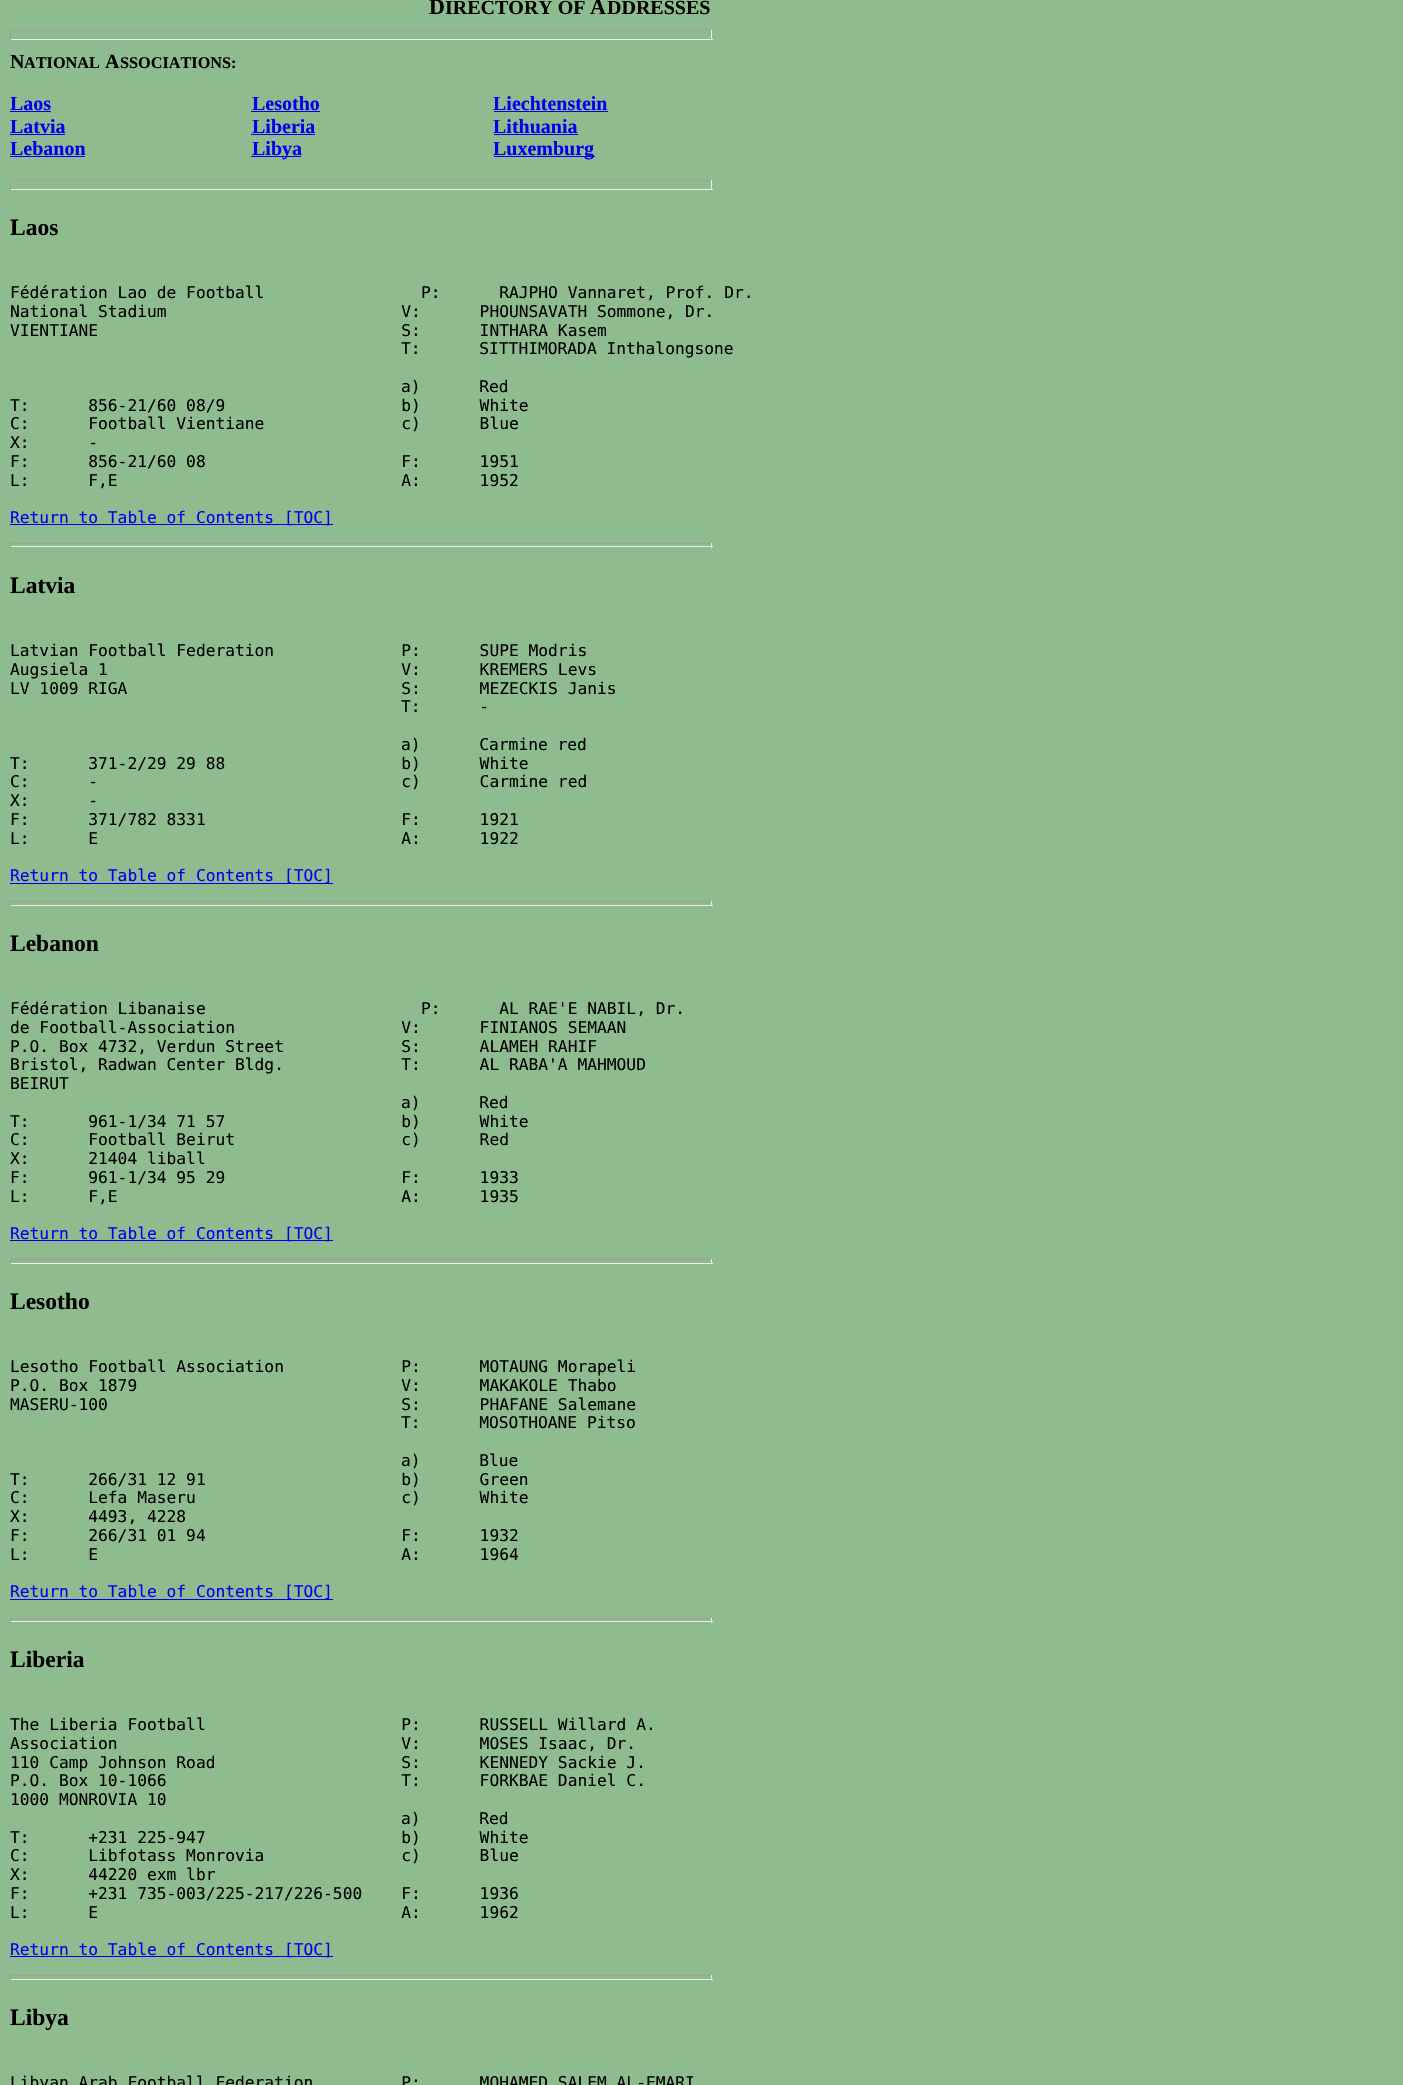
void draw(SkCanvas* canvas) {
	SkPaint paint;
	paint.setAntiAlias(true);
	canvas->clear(0xff8fbc8f);
	SkFont f1(fontMgr->matchFamilyStyle("Liberation Serif", SkFontStyle::Bold()), 22);
	f1.setSubpixel(true);
	paint.setColor(0xff000000);
	canvas->drawString("D", 429, 14, f1, paint);
	SkFont f2(fontMgr->matchFamilyStyle("Liberation Serif", SkFontStyle::Bold()), 20);
	f2.setSubpixel(true);
	canvas->drawString("IRECTORY OF", 445, 14, f2, paint);
	canvas->drawString("A", 590, 14, f1, paint);
	canvas->drawString("DDRESSES", 607, 14, f2, paint);
	paint.setColor(0xff9f9f9f);
	canvas->drawRect(SkRect::MakeXYWH(10, 30, 703, 1), paint);
	paint.setColor(0xffeeeeee);
	canvas->drawRect(SkRect::MakeXYWH(711, 30, 1, 10), paint);
	canvas->drawRect(SkRect::MakeXYWH(10, 39, 703, 1), paint);
	paint.setColor(0xff9f9f9f);
	canvas->drawRect(SkRect::MakeXYWH(10, 30, 1, 10), paint);
	paint.setColor(0xff000000);
	canvas->drawString("N", 10, 68, f2, paint);
	SkFont f3(fontMgr->matchFamilyStyle("Liberation Serif", SkFontStyle::Bold()), 16.25);
	f3.setSubpixel(true);
	canvas->drawString("ATIONAL", 24, 68, f3, paint);
	canvas->drawString("A", 105, 68, f2, paint);
	canvas->drawString("SSOCIATIONS:", 120, 68, f3, paint);
	paint.setColor(0xff0000ee);
	canvas->drawString("Laos", 10, 110, f2, paint);
	canvas->drawRect(SkRect::MakeXYWH(10, 111, 41, 1), paint);
	canvas->drawString("Latvia", 10, 133, f2, paint);
	canvas->drawRect(SkRect::MakeXYWH(10, 134, 55, 1), paint);
	canvas->drawString("Lebanon", 10, 155, f2, paint);
	canvas->drawRect(SkRect::MakeXYWH(10, 156, 75, 1), paint);
	canvas->drawString("Lesotho", 252, 110, f2, paint);
	canvas->drawRect(SkRect::MakeXYWH(251, 111, 69, 1), paint);
	canvas->drawString("Liberia", 252, 133, f2, paint);
	canvas->drawRect(SkRect::MakeXYWH(251, 134, 64, 1), paint);
	canvas->drawRect(SkRect::MakeXYWH(251, 156, 50, 1), paint);
	canvas->drawString("Libya", 252, 155, f2, paint);
	canvas->drawString("Liechtenstein", 493, 110, f2, paint);
	canvas->drawRect(SkRect::MakeXYWH(494, 111, 114, 1), paint);
	canvas->drawString("Lithuania", 493, 133, f2, paint);
	canvas->drawRect(SkRect::MakeXYWH(494, 134, 84, 1), paint);
	canvas->drawRect(SkRect::MakeXYWH(494, 156, 101, 1), paint);
	canvas->drawString("Luxemburg", 493, 155, f2, paint);
	paint.setColor(0xff9f9f9f);
	canvas->drawRect(SkRect::MakeXYWH(10, 180, 703, 1), paint);
	paint.setColor(0xffeeeeee);
	canvas->drawRect(SkRect::MakeXYWH(711, 180, 1, 10), paint);
	canvas->drawRect(SkRect::MakeXYWH(10, 189, 703, 1), paint);
	paint.setColor(0xff9f9f9f);
	canvas->drawRect(SkRect::MakeXYWH(10, 180, 1, 10), paint);
	SkFont f4(fontMgr->matchFamilyStyle("Liberation Serif", SkFontStyle::Bold()), 23.5);
	f4.setSubpixel(true);
	paint.setColor(0xff000000);
	canvas->drawString("Laos", 10, 235, f4, paint);
	SkFont f5(fontMgr->matchFamilyStyle("DejaVu Sans Mono", SkFontStyle::Normal()), 16.25);
	f5.setSubpixel(true);
	canvas->drawString("Fédération Lao de Football                P:      RAJPHO Vannaret, Prof. Dr.", 10, 298, f5, paint);
	canvas->drawString("National Stadium                        V:      PHOUNSAVATH Sommone, Dr.", 10, 317, f5, paint);
	canvas->drawString("VIENTIANE                               S:      INTHARA Kasem", 10, 336, f5, paint);
	canvas->drawString("T:      SITTHIMORADA Inthalongsone", 401, 354, f5, paint);
	canvas->drawString("a)      Red", 401, 392, f5, paint);
	canvas->drawString("T:      856-21/60 08/9                  b)      White", 10, 411, f5, paint);
	canvas->drawString("C:      Football Vientiane              c)      Blue", 10, 429, f5, paint);
	canvas->drawString("X:      -", 10, 448, f5, paint);
	canvas->drawString("F:      856-21/60 08                    F:      1951", 10, 467, f5, paint);
	canvas->drawString("L:      F,E                             A:      1952", 10, 486, f5, paint);
	paint.setColor(0xff0000ee);
	canvas->drawRect(SkRect::MakeXYWH(10, 524, 323, 1), paint);
	canvas->drawString("Return to Table of Contents [TOC]", 10, 523, f5, paint);
	paint.setColor(0xff9f9f9f);
	canvas->drawRect(SkRect::MakeXYWH(10, 543, 703, 1), paint);
	paint.setColor(0xffeeeeee);
	canvas->drawRect(SkRect::MakeXYWH(711, 543, 1, 5), paint);
	canvas->drawRect(SkRect::MakeXYWH(10, 546, 703, 1), paint);
	paint.setColor(0xff9f9f9f);
	canvas->drawRect(SkRect::MakeXYWH(10, 543, 1, 5), paint);
	paint.setColor(0xff000000);
	canvas->drawString("Latvia", 10, 593, f4, paint);
	canvas->drawString("Latvian Football Federation             P:      SUPE Modris", 10, 656, f5, paint);
	canvas->drawString("Augsiela 1                              V:      KREMERS Levs", 10, 675, f5, paint);
	canvas->drawString("LV 1009 RIGA                            S:      MEZECKIS Janis", 10, 694, f5, paint);
	canvas->drawString("T:      -", 401, 712, f5, paint);
	canvas->drawString("a)      Carmine red", 401, 750, f5, paint);
	canvas->drawString("T:      371-2/29 29 88                  b)      White", 10, 769, f5, paint);
	canvas->drawString("C:      -                               c)      Carmine red", 10, 787, f5, paint);
	canvas->drawString("X:      -", 10, 806, f5, paint);
	canvas->drawString("F:      371/782 8331                    F:      1921", 10, 825, f5, paint);
	canvas->drawString("L:      E                               A:      1922", 10, 844, f5, paint);
	paint.setColor(0xff0000ee);
	canvas->drawRect(SkRect::MakeXYWH(10, 883, 323, 1), paint);
	canvas->drawString("Return to Table of Contents [TOC]", 10, 881, f5, paint);
	paint.setColor(0xff9f9f9f);
	canvas->drawRect(SkRect::MakeXYWH(10, 901, 703, 1), paint);
	paint.setColor(0xffeeeeee);
	canvas->drawRect(SkRect::MakeXYWH(711, 901, 1, 5), paint);
	canvas->drawRect(SkRect::MakeXYWH(10, 905, 703, 1), paint);
	paint.setColor(0xff9f9f9f);
	canvas->drawRect(SkRect::MakeXYWH(10, 901, 1, 5), paint);
	paint.setColor(0xff000000);
	canvas->drawString("Lebanon", 10, 951, f4, paint);
	canvas->drawString("Fédération Libanaise                      P:      AL RAE'E NABIL, Dr.", 10, 1014, f5, paint);
	canvas->drawString("de Football-Association                 V:      FINIANOS SEMAAN", 10, 1033, f5, paint);
	canvas->drawString("P.O. Box 4732, Verdun Street            S:      ALAMEH RAHIF", 10, 1052, f5, paint);
	canvas->drawString("Bristol, Radwan Center Bldg.            T:      AL RABA'A MAHMOUD", 10, 1070, f5, paint);
	canvas->drawString("BEIRUT", 10, 1089, f5, paint);
	canvas->drawString("a)      Red", 401, 1108, f5, paint);
	canvas->drawString("T:      961-1/34 71 57                  b)      White", 10, 1127, f5, paint);
	canvas->drawString("C:      Football Beirut                 c)      Red", 10, 1145, f5, paint);
	canvas->drawString("X:      21404 liball", 10, 1164, f5, paint);
	canvas->drawString("F:      961-1/34 95 29                  F:      1933", 10, 1183, f5, paint);
	canvas->drawString("L:      F,E                             A:      1935", 10, 1202, f5, paint);
	paint.setColor(0xff0000ee);
	canvas->drawRect(SkRect::MakeXYWH(10, 1240, 323, 1), paint);
	canvas->drawString("Return to Table of Contents [TOC]", 10, 1239, f5, paint);
	paint.setColor(0xff9f9f9f);
	canvas->drawRect(SkRect::MakeXYWH(10, 1259, 703, 1), paint);
	paint.setColor(0xffeeeeee);
	canvas->drawRect(SkRect::MakeXYWH(711, 1259, 1, 5), paint);
	canvas->drawRect(SkRect::MakeXYWH(10, 1263, 703, 1), paint);
	paint.setColor(0xff9f9f9f);
	canvas->drawRect(SkRect::MakeXYWH(10, 1259, 1, 5), paint);
	paint.setColor(0xff000000);
	canvas->drawString("Lesotho", 10, 1309, f4, paint);
	canvas->drawString("Lesotho Football Association            P:      MOTAUNG Morapeli", 10, 1372, f5, paint);
	canvas->drawString("P.O. Box 1879                           V:      MAKAKOLE Thabo", 10, 1391, f5, paint);
	canvas->drawString("MASERU-100                              S:      PHAFANE Salemane", 10, 1410, f5, paint);
	canvas->drawString("T:      MOSOTHOANE Pitso", 401, 1428, f5, paint);
	canvas->drawString("a)      Blue", 401, 1466, f5, paint);
	canvas->drawString("T:      266/31 12 91                    b)      Green", 10, 1485, f5, paint);
	canvas->drawString("C:      Lefa Maseru                     c)      White", 10, 1503, f5, paint);
	canvas->drawString("X:      4493, 4228", 10, 1522, f5, paint);
	canvas->drawString("F:      266/31 01 94                    F:      1932", 10, 1541, f5, paint);
	canvas->drawString("L:      E                               A:      1964", 10, 1560, f5, paint);
	paint.setColor(0xff0000ee);
	canvas->drawRect(SkRect::MakeXYWH(10, 1599, 323, 1), paint);
	canvas->drawString("Return to Table of Contents [TOC]", 10, 1597, f5, paint);
	paint.setColor(0xff9f9f9f);
	canvas->drawRect(SkRect::MakeXYWH(10, 1618, 703, 1), paint);
	paint.setColor(0xffeeeeee);
	canvas->drawRect(SkRect::MakeXYWH(711, 1618, 1, 5), paint);
	canvas->drawRect(SkRect::MakeXYWH(10, 1621, 703, 1), paint);
	paint.setColor(0xff9f9f9f);
	canvas->drawRect(SkRect::MakeXYWH(10, 1618, 1, 5), paint);
	paint.setColor(0xff000000);
	canvas->drawString("Liberia", 10, 1667, f4, paint);
	canvas->drawString("The Liberia Football                    P:      RUSSELL Willard A.", 10, 1730, f5, paint);
	canvas->drawString("Association                             V:      MOSES Isaac, Dr.", 10, 1749, f5, paint);
	canvas->drawString("110 Camp Johnson Road                   S:      KENNEDY Sackie J.", 10, 1768, f5, paint);
	canvas->drawString("P.O. Box 10-1066                        T:      FORKBAE Daniel C.", 10, 1786, f5, paint);
	canvas->drawString("1000 MONROVIA 10", 10, 1805, f5, paint);
	canvas->drawString("a)      Red", 401, 1824, f5, paint);
	canvas->drawString("T:      +231 225-947                    b)      White", 10, 1843, f5, paint);
	canvas->drawString("C:      Libfotass Monrovia              c)      Blue", 10, 1861, f5, paint);
	canvas->drawString("X:      44220 exm lbr", 10, 1880, f5, paint);
	canvas->drawString("F:      +231 735-003/225-217/226-500    F:      1936", 10, 1899, f5, paint);
	canvas->drawString("L:      E                               A:      1962", 10, 1918, f5, paint);
	paint.setColor(0xff0000ee);
	canvas->drawRect(SkRect::MakeXYWH(10, 1956, 323, 1), paint);
	canvas->drawString("Return to Table of Contents [TOC]", 10, 1955, f5, paint);
	paint.setColor(0xff9f9f9f);
	canvas->drawRect(SkRect::MakeXYWH(10, 1975, 703, 1), paint);
	paint.setColor(0xffeeeeee);
	canvas->drawRect(SkRect::MakeXYWH(711, 1975, 1, 5), paint);
	canvas->drawRect(SkRect::MakeXYWH(10, 1979, 703, 1), paint);
	paint.setColor(0xff9f9f9f);
	canvas->drawRect(SkRect::MakeXYWH(10, 1975, 1, 5), paint);
	paint.setColor(0xff000000);
	canvas->drawString("Libya", 10, 2025, f4, paint);
	canvas->drawString("Libyan Arab Football Federation         P:      MOHAMED SALEM AL-EMARI", 10, 2088, f5, paint);
}
